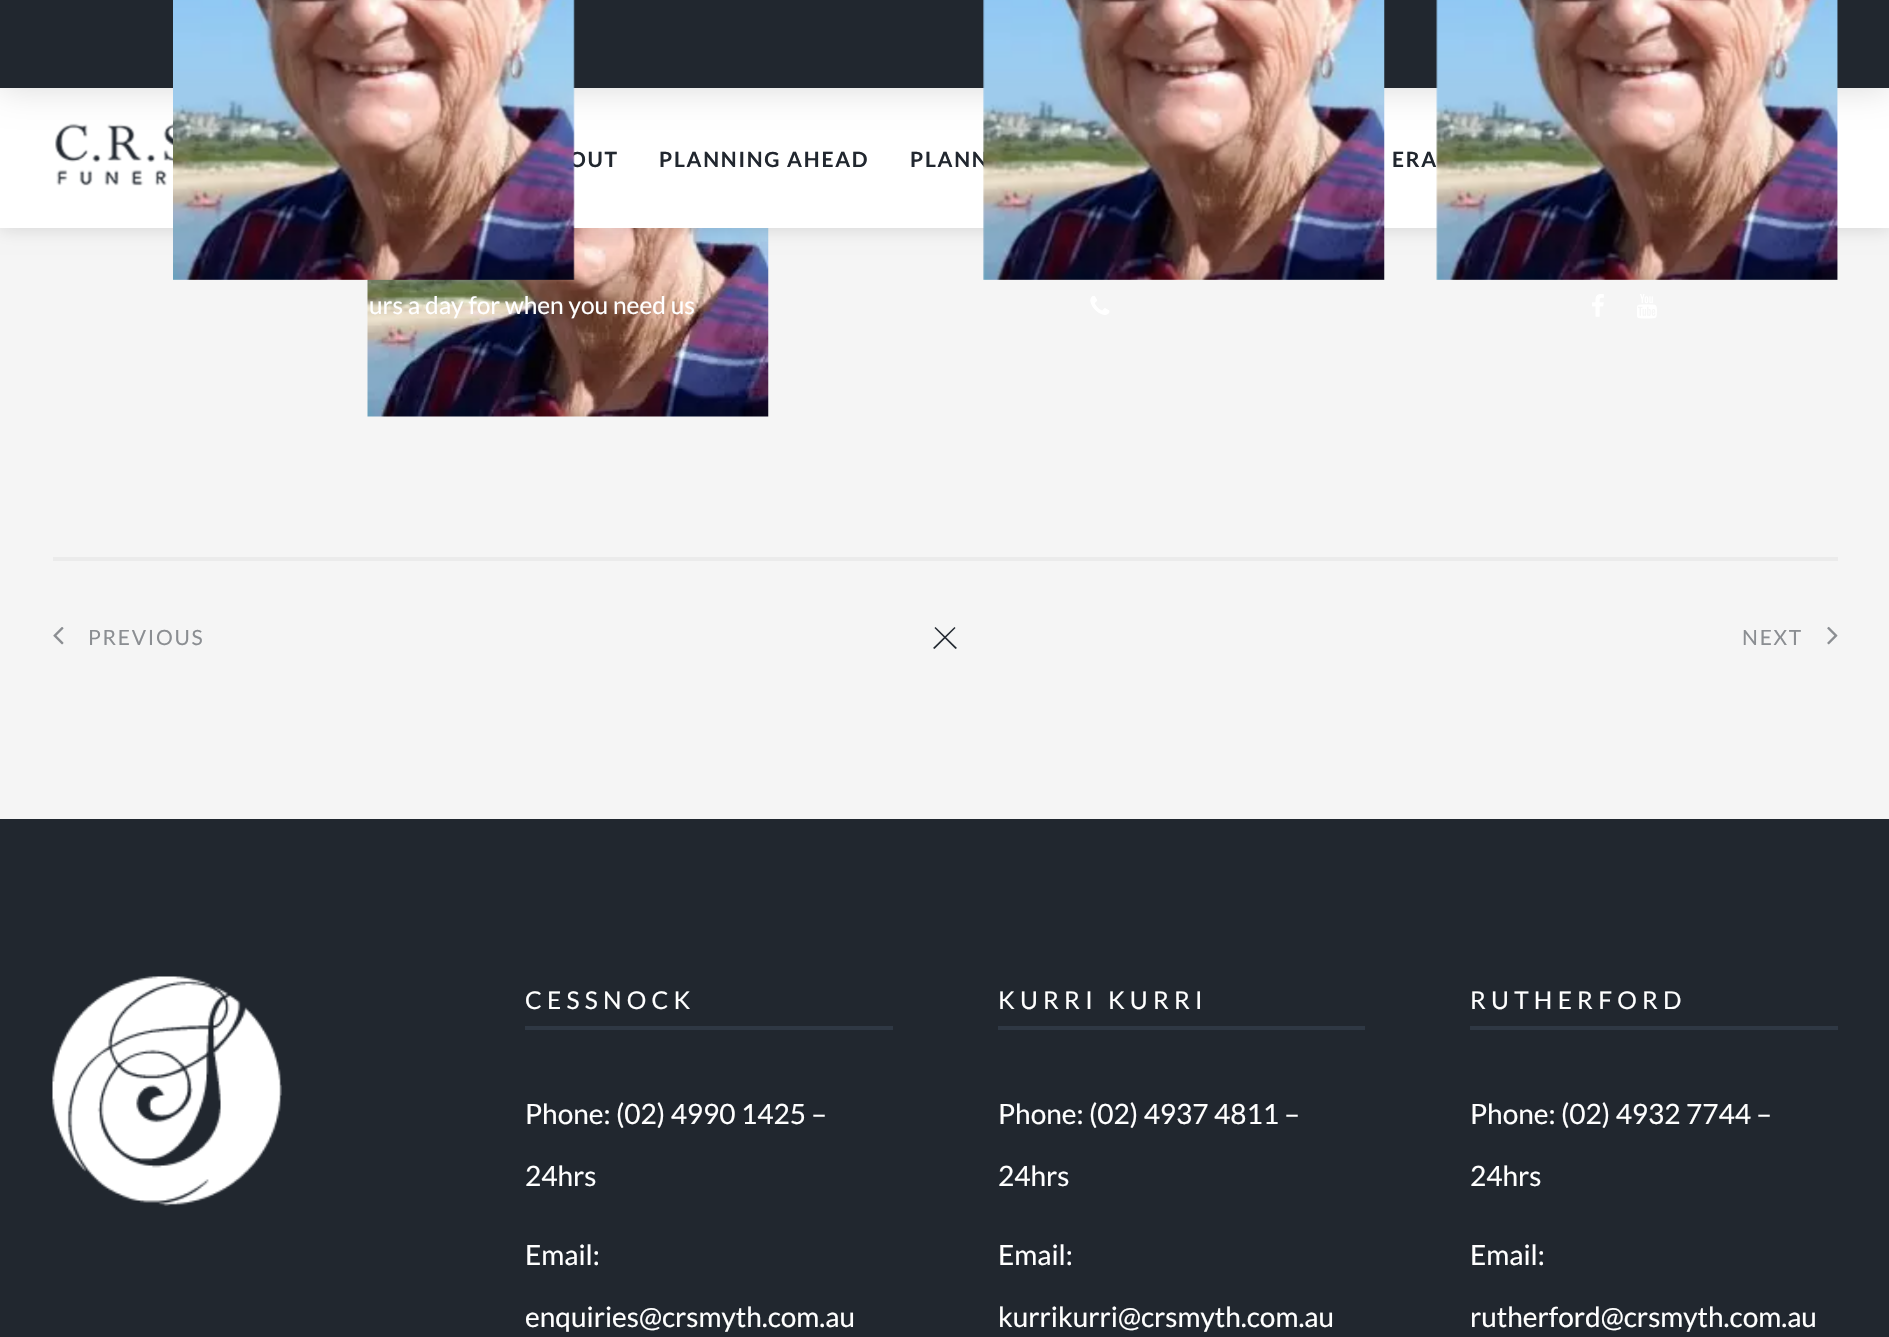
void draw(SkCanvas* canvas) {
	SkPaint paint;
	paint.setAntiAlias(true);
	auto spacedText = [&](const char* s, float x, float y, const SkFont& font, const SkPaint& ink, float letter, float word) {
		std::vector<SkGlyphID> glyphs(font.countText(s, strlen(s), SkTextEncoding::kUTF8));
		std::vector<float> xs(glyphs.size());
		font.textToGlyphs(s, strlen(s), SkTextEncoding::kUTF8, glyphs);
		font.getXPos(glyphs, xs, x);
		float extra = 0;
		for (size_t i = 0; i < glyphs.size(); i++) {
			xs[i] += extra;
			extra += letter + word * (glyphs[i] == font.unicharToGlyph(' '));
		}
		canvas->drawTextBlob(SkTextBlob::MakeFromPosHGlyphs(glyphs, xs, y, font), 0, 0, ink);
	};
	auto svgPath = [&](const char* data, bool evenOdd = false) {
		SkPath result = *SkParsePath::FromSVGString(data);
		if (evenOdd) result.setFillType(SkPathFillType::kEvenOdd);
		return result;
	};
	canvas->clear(0xfff5f5f5);
	canvas->drawImageRect(SkImages::DeferredFromEncodedData(SkData::MakeFromFileName("img8.png")), SkRect::MakeXYWH(367, 228, 402, 189), SkSamplingOptions());
	paint.setColor(0x26000000);
	paint.setMaskFilter(SkMaskFilter::MakeBlur(kNormal_SkBlurStyle, 9));
	canvas->drawRect(SkRect::MakeXYWH(0, 88, 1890, 140), paint);
	paint.setMaskFilter(nullptr);
	paint.setColor(0xffffffff);
	canvas->drawRect(SkRect::MakeXYWH(0, 88, 1889, 140), paint);
	canvas->drawImageRect(SkImages::DeferredFromEncodedData(SkData::MakeFromFileName("img1.png")), SkRect::MakeXYWH(55, 123, 118, 63), SkSamplingOptions());
	SkFont f1(fontMgr->matchFamilyStyle("Lato", SkFontStyle::Bold()), 21);
	f1.setSubpixel(true);
	paint.setColor(0xff21272f);
	spacedText("OUT", 569, 167, f1, paint, 1.75, 0);
	spacedText("PLANNING AHEAD", 659, 167, f1, paint, 1.75, 0);
	spacedText("PLANN", 910, 167, f1, paint, 1.75, 0);
	spacedText("ERA", 1392, 167, f1, paint, 1.75, 0);
	paint.setColor(0x26000000);
	paint.setMaskFilter(SkMaskFilter::MakeBlur(kNormal_SkBlurStyle, 17.5));
	canvas->drawRect(SkRect::MakeXYWH(0, 0, 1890, 88), paint);
	paint.setMaskFilter(nullptr);
	paint.setColor(0xff21272f);
	canvas->drawRect(SkRect::MakeXYWH(0, 0, 1889, 88), paint);
	canvas->drawImageRect(SkImages::DeferredFromEncodedData(SkData::MakeFromFileName("img2.png")), SkRect::MakeXYWH(173, 0, 402, 280), SkSamplingOptions());
	SkFont f2(fontMgr->matchFamilyStyle("Lato", SkFontStyle::Normal()), 24.5);
	f2.setSubpixel(true);
	paint.setColor(0xffffffff);
	canvas->drawString("urs a day for when you need us", 369, 314, f2, paint);
	canvas->drawImageRect(SkImages::DeferredFromEncodedData(SkData::MakeFromFileName("img3.png")), SkRect::MakeXYWH(983, 0, 402, 280), SkSamplingOptions());
	canvas->drawImageRect(SkImages::DeferredFromEncodedData(SkData::MakeFromFileName("img4.png")), SkRect::MakeXYWH(1090, 296, 20, 19), SkSamplingOptions());
	canvas->drawImageRect(SkImages::DeferredFromEncodedData(SkData::MakeFromFileName("img5.png")), SkRect::MakeXYWH(1436, 0, 402, 280), SkSamplingOptions());
	canvas->drawImageRect(SkImages::DeferredFromEncodedData(SkData::MakeFromFileName("img6.png")), SkRect::MakeXYWH(1592, 294, 12, 23), SkSamplingOptions());
	canvas->drawImageRect(SkImages::DeferredFromEncodedData(SkData::MakeFromFileName("img7.png")), SkRect::MakeXYWH(1637, 294, 20, 25), SkSamplingOptions());
	paint.setColor(0xffebebeb);
	canvas->drawRect(SkRect::MakeXYWH(53, 557, 1785, 4), paint);
	canvas->drawImageRect(SkImages::DeferredFromEncodedData(SkData::MakeFromFileName("img9.png")), SkRect::MakeXYWH(53, 627, 11, 18), SkSamplingOptions());
	SkFont f3(fontMgr->matchFamilyStyle("Lato", SkFontStyle::Normal()), 21);
	f3.setSubpixel(true);
	paint.setColor(0xff8b8e92);
	spacedText("PREVIOUS", 88, 645, f3, paint, 1.75, 0);
	paint.setColor(0xff21272f);
	canvas->drawPath(svgPath("M935.5 627L957 648L955.5 649L934.5 628Z"), paint);
	canvas->drawPath(svgPath("M954.5 627L955.5 628L934.5 649L933 648Z"), paint);
	paint.setColor(0xff8b8e92);
	spacedText("NEXT", 1742, 645, f3, paint, 1.75, 0);
	canvas->drawImageRect(SkImages::DeferredFromEncodedData(SkData::MakeFromFileName("img10.png")), SkRect::MakeXYWH(1827, 626, 11, 19), SkSamplingOptions());
	paint.setColor(0xff21272f);
	canvas->drawRect(SkRect::MakeXYWH(0, 819, 1889, 518), paint);
	canvas->drawImageRect(SkImages::DeferredFromEncodedData(SkData::MakeFromFileName("img11.png")), SkRect::MakeXYWH(52, 976, 230, 230), SkSamplingOptions());
	paint.setColor(0xff2f3844);
	canvas->drawRect(SkRect::MakeXYWH(525, 1026, 368, 4), paint);
	paint.setColor(0xffffffff);
	spacedText("CESSNOCK", 525, 1009, f2, paint, 5.25, 0);
	SkFont f4(fontMgr->matchFamilyStyle("Lato", SkFontStyle::Normal()), 28);
	f4.setSubpixel(true);
	canvas->drawString("Phone: (02) 4990 1425 –", 525, 1124, f4, paint);
	canvas->drawString("24hrs", 525, 1186, f4, paint);
	canvas->drawString("Email:", 525, 1265, f4, paint);
	canvas->drawString("enquiries@crsmyth.com.au", 525, 1327, f4, paint);
	paint.setColor(0xff2f3844);
	canvas->drawRect(SkRect::MakeXYWH(998, 1026, 367, 4), paint);
	paint.setColor(0xffffffff);
	spacedText("KURRI KURRI", 998, 1009, f2, paint, 5.25, 0);
	canvas->drawString("Phone: (02) 4937 4811 –", 998, 1124, f4, paint);
	canvas->drawString("24hrs", 998, 1186, f4, paint);
	canvas->drawString("Email:", 998, 1265, f4, paint);
	canvas->drawString("kurrikurri@crsmyth.com.au", 998, 1327, f4, paint);
	paint.setColor(0xff2f3844);
	canvas->drawRect(SkRect::MakeXYWH(1470, 1026, 368, 4), paint);
	paint.setColor(0xffffffff);
	spacedText("RUTHERFORD", 1470, 1009, f2, paint, 5.25, 0);
	canvas->drawString("Phone: (02) 4932 7744 –", 1470, 1124, f4, paint);
	canvas->drawString("24hrs", 1470, 1186, f4, paint);
	canvas->drawString("Email:", 1470, 1265, f4, paint);
	canvas->drawString("rutherford@crsmyth.com.au", 1470, 1327, f4, paint);
}
